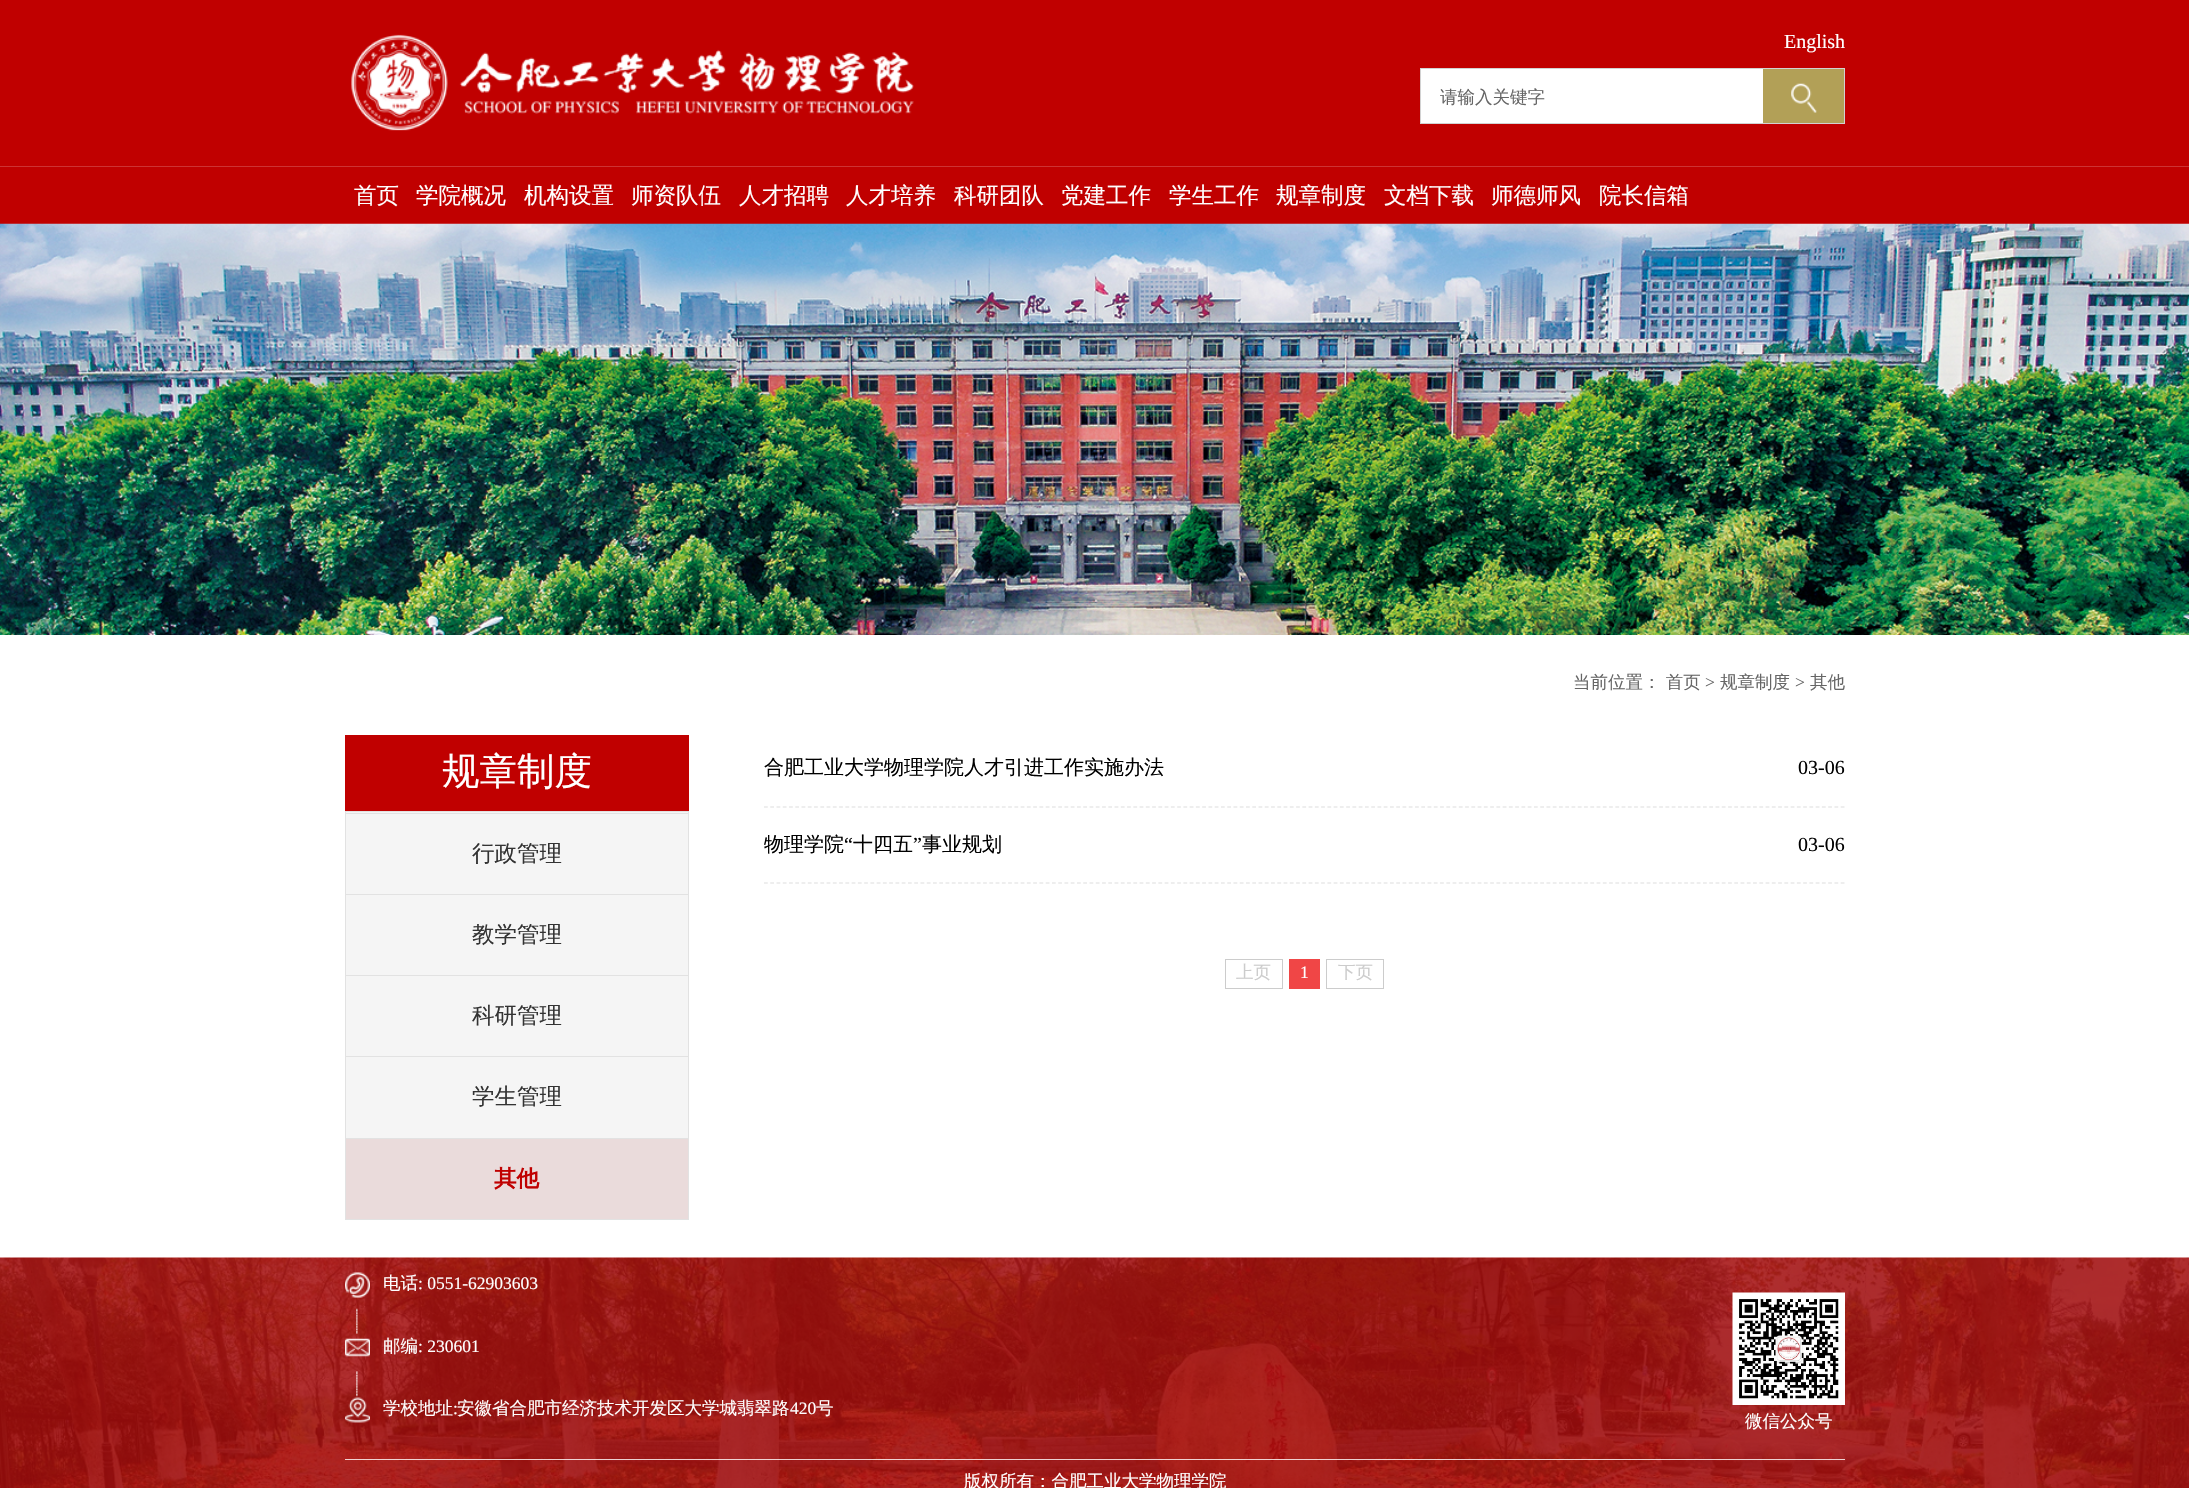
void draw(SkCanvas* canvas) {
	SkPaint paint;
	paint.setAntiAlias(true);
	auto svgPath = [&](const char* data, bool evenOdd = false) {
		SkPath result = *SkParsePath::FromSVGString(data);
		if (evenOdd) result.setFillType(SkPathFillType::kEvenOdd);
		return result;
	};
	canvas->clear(0xffffffff);
	paint.setColor(0xffc00000);
	canvas->drawRect(SkRect::MakeXYWH(0, 0, 2189, 224), paint);
	paint.setColor(0xffcd3333);
	canvas->drawRect(SkRect::MakeXYWH(0, 166, 2189, 1), paint);
	canvas->drawImageRect(SkImages::DeferredFromEncodedData(SkData::MakeFromFileName("img1.png")), SkRect::MakeXYWH(351, 34, 563, 97), SkSamplingOptions());
	SkFont f1(fontMgr->matchFamilyStyle("Liberation Serif", SkFontStyle::Normal()), 20);
	f1.setSubpixel(true);
	paint.setColor(0xffffffff);
	canvas->drawString("English", 1784, 48, f1, paint);
	canvas->drawRect(SkRect::MakeXYWH(1421, 69, 342, 54), paint);
	paint.setStroke(true);
	paint.setStrokeWidth(1);
	paint.setColor(0xffd2d2d2);
	canvas->drawRect(SkRect::MakeXYWH(1420.5, 68.5, 424, 55), paint);
	SkFont f2(fontMgr->matchFamilyStyle("WenQuanYi Zen Hei", SkFontStyle(500, SkFontStyle::kNormal_Width, SkFontStyle::kUpright_Slant)), 17.5);
	f2.setSubpixel(true);
	paint.setStroke(false);
	paint.setColor(0xff666666);
	canvas->drawString("请输入关键字", 1440, 103, f2, paint);
	paint.setColor(0xffb2a057);
	canvas->drawRect(SkRect::MakeXYWH(1763, 69, 81, 54), paint);
	canvas->drawImageRect(SkImages::DeferredFromEncodedData(SkData::MakeFromFileName("img2.png")), SkRect::MakeXYWH(1791, 83, 26, 30), SkSamplingOptions());
	SkFont f3(fontMgr->matchFamilyStyle("WenQuanYi Zen Hei", SkFontStyle(500, SkFontStyle::kNormal_Width, SkFontStyle::kUpright_Slant)), 22.5);
	f3.setSubpixel(true);
	paint.setColor(0xffffffff);
	canvas->drawString("首页", 354, 203, f3, paint);
	canvas->drawString("学院概况", 416, 203, f3, paint);
	canvas->drawString("机构设置", 524, 203, f3, paint);
	canvas->drawString("师资队伍", 631, 203, f3, paint);
	canvas->drawString("人才招聘", 739, 203, f3, paint);
	canvas->drawString("人才培养", 846, 203, f3, paint);
	canvas->drawString("科研团队", 954, 203, f3, paint);
	canvas->drawString("党建工作", 1061, 203, f3, paint);
	canvas->drawString("学生工作", 1169, 203, f3, paint);
	canvas->drawString("规章制度", 1276, 203, f3, paint);
	canvas->drawString("文档下载", 1384, 203, f3, paint);
	canvas->drawString("师德师风", 1491, 203, f3, paint);
	canvas->drawString("院长信箱", 1599, 203, f3, paint);
	canvas->drawImageRect(SkImages::DeferredFromEncodedData(SkData::MakeFromFileName("img3.png")), SkRect::MakeXYWH(0, 223, 2189, 412), SkSamplingOptions());
	paint.setColor(0xffc00000);
	canvas->drawRect(SkRect::MakeXYWH(345, 735, 344, 76), paint);
	SkFont f4(fontMgr->matchFamilyStyle("WenQuanYi Zen Hei", SkFontStyle(500, SkFontStyle::kNormal_Width, SkFontStyle::kUpright_Slant)), 37.5);
	f4.setSubpixel(true);
	paint.setColor(0xffffffff);
	canvas->drawString("规章制度", 442, 784, f4, paint);
	paint.setColor(0xfff5f5f5);
	canvas->drawRect(SkRect::MakeXYWH(346, 812, 342, 326), paint);
	paint.setStroke(true);
	paint.setColor(0xffe2e2e2);
	canvas->drawRect(SkRect::MakeXYWH(345.5, 811.5, 343, 408), paint);
	paint.setStroke(false);
	canvas->drawRect(SkRect::MakeXYWH(346, 813, 342, 1), paint);
	paint.setColor(0xff333333);
	canvas->drawString("行政管理", 472, 861, f3, paint);
	paint.setColor(0xffe2e2e2);
	canvas->drawRect(SkRect::MakeXYWH(346, 894, 342, 1), paint);
	paint.setColor(0xff333333);
	canvas->drawString("教学管理", 472, 942, f3, paint);
	paint.setColor(0xffe2e2e2);
	canvas->drawRect(SkRect::MakeXYWH(346, 975, 342, 1), paint);
	paint.setColor(0xff333333);
	canvas->drawString("科研管理", 472, 1023, f3, paint);
	paint.setColor(0xffe2e2e2);
	canvas->drawRect(SkRect::MakeXYWH(346, 1056, 342, 1), paint);
	paint.setColor(0xff333333);
	canvas->drawString("学生管理", 472, 1104, f3, paint);
	paint.setColor(0xffeadbdb);
	canvas->drawRect(SkRect::MakeXYWH(346, 1139, 342, 80), paint);
	paint.setColor(0xffe2e2e2);
	canvas->drawRect(SkRect::MakeXYWH(346, 1138, 342, 1), paint);
	SkFont f5(fontMgr->matchFamilyStyle("WenQuanYi Zen Hei", SkFontStyle::Bold()), 22.5);
	f5.setSubpixel(true);
	paint.setColor(0xffc00000);
	canvas->drawString("其他", 494, 1186, f5, paint);
	paint.setColor(0xff666666);
	canvas->drawString("当前位置： 首页", 1573, 688, f2, paint);
	SkFont f6(fontMgr->matchFamilyStyle("Liberation Serif", SkFontStyle::Normal()), 17.5);
	f6.setSubpixel(true);
	canvas->drawString(">", 1705, 688, f6, paint);
	canvas->drawString("规章制度", 1720, 688, f2, paint);
	canvas->drawString(">", 1795, 688, f6, paint);
	canvas->drawString("其他", 1810, 688, f2, paint);
	paint.setStroke(true);
	paint.setStrokeWidth(1.2);
	paint.setColor(0xffdedede);
	paint.setPathEffect(SkDashPathEffect::Make({{3.75f, 2.51f}}, 0));
	canvas->drawPath(svgPath("M764 807H1845"), paint);
	paint.setPathEffect(nullptr);
	SkFont f7(fontMgr->matchFamilyStyle("WenQuanYi Zen Hei", SkFontStyle(500, SkFontStyle::kNormal_Width, SkFontStyle::kUpright_Slant)), 20);
	f7.setSubpixel(true);
	paint.setStroke(false);
	paint.setColor(0xff000000);
	canvas->drawString("合肥工业大学物理学院人才引进工作实施办法", 764, 774, f7, paint);
	canvas->drawString("03-06", 1798, 774, f1, paint);
	paint.setStroke(true);
	paint.setColor(0xffdedede);
	paint.setPathEffect(SkDashPathEffect::Make({{3.75f, 2.51f}}, 0));
	canvas->drawPath(svgPath("M764 883H1845"), paint);
	paint.setPathEffect(nullptr);
	paint.setStroke(false);
	paint.setColor(0xff000000);
	canvas->drawString("物理学院", 764, 851, f7, paint);
	canvas->drawString("“", 844, 851, f1, paint);
	canvas->drawString("十四五", 853, 851, f7, paint);
	canvas->drawString("”", 913, 851, f1, paint);
	canvas->drawString("事业规划", 922, 851, f7, paint);
	canvas->drawString("03-06", 1798, 851, f1, paint);
	paint.setStroke(true);
	paint.setStrokeWidth(1);
	paint.setColor(0xffcccccc);
	canvas->drawRect(SkRect::MakeXYWH(1225.5, 959.5, 57, 29), paint);
	paint.setStroke(false);
	canvas->drawString("上页", 1236, 978, f2, paint);
	paint.setColor(0xfff04646);
	canvas->drawRect(SkRect::MakeXYWH(1289, 959, 31, 30), paint);
	paint.setColor(0xffffffff);
	canvas->drawString("1", 1300, 978, f6, paint);
	paint.setStroke(true);
	paint.setColor(0xffcccccc);
	canvas->drawRect(SkRect::MakeXYWH(1326.5, 959.5, 57, 29), paint);
	paint.setStroke(false);
	canvas->drawString("下页", 1338, 978, f2, paint);
	canvas->drawImageRect(SkImages::DeferredFromEncodedData(SkData::MakeFromFileName("img4.png")), SkRect::MakeXYWH(0, 1257, 2189, 231), SkSamplingOptions());
	paint.setColor(0xccffffff);
	canvas->drawRect(SkRect::MakeXYWH(345, 1459, 1500, 1), paint);
	canvas->drawImageRect(SkImages::DeferredFromEncodedData(SkData::MakeFromFileName("img5.png")), SkRect::MakeXYWH(345, 1272, 25, 26), SkSamplingOptions());
	paint.setColor(0xffffffff);
	canvas->drawString("电话", 383, 1289, f2, paint);
	canvas->drawString(": 0551-62903603", 418, 1289, f6, paint);
	canvas->drawImageRect(SkImages::DeferredFromEncodedData(SkData::MakeFromFileName("img6.png")), SkRect::MakeXYWH(356, 1308, 2, 26), SkSamplingOptions());
	canvas->drawImageRect(SkImages::DeferredFromEncodedData(SkData::MakeFromFileName("img7.png")), SkRect::MakeXYWH(345, 1338, 25, 19), SkSamplingOptions());
	canvas->drawString("邮编", 383, 1352, f2, paint);
	canvas->drawString(": 230601", 418, 1352, f6, paint);
	canvas->drawImageRect(SkImages::DeferredFromEncodedData(SkData::MakeFromFileName("img8.png")), SkRect::MakeXYWH(356, 1371, 2, 26), SkSamplingOptions());
	canvas->drawImageRect(SkImages::DeferredFromEncodedData(SkData::MakeFromFileName("img9.png")), SkRect::MakeXYWH(345, 1397, 25, 26), SkSamplingOptions());
	canvas->drawString("学校地址", 383, 1414, f2, paint);
	canvas->drawString(":", 453, 1414, f6, paint);
	canvas->drawString("安徽省合肥市经济技术开发区大学城翡翠路", 457, 1414, f2, paint);
	canvas->drawString("420", 790, 1414, f6, paint);
	canvas->drawString("号", 816, 1414, f2, paint);
	canvas->drawImageRect(SkImages::DeferredFromEncodedData(SkData::MakeFromFileName("img10.png")), SkRect::MakeXYWH(1732, 1292, 113, 113), SkSamplingOptions());
	canvas->drawString("微信公众号", 1745, 1427, f2, paint);
	canvas->drawString("版权所有：合肥工业大学物理学院", 964, 1487, f2, paint);
}
